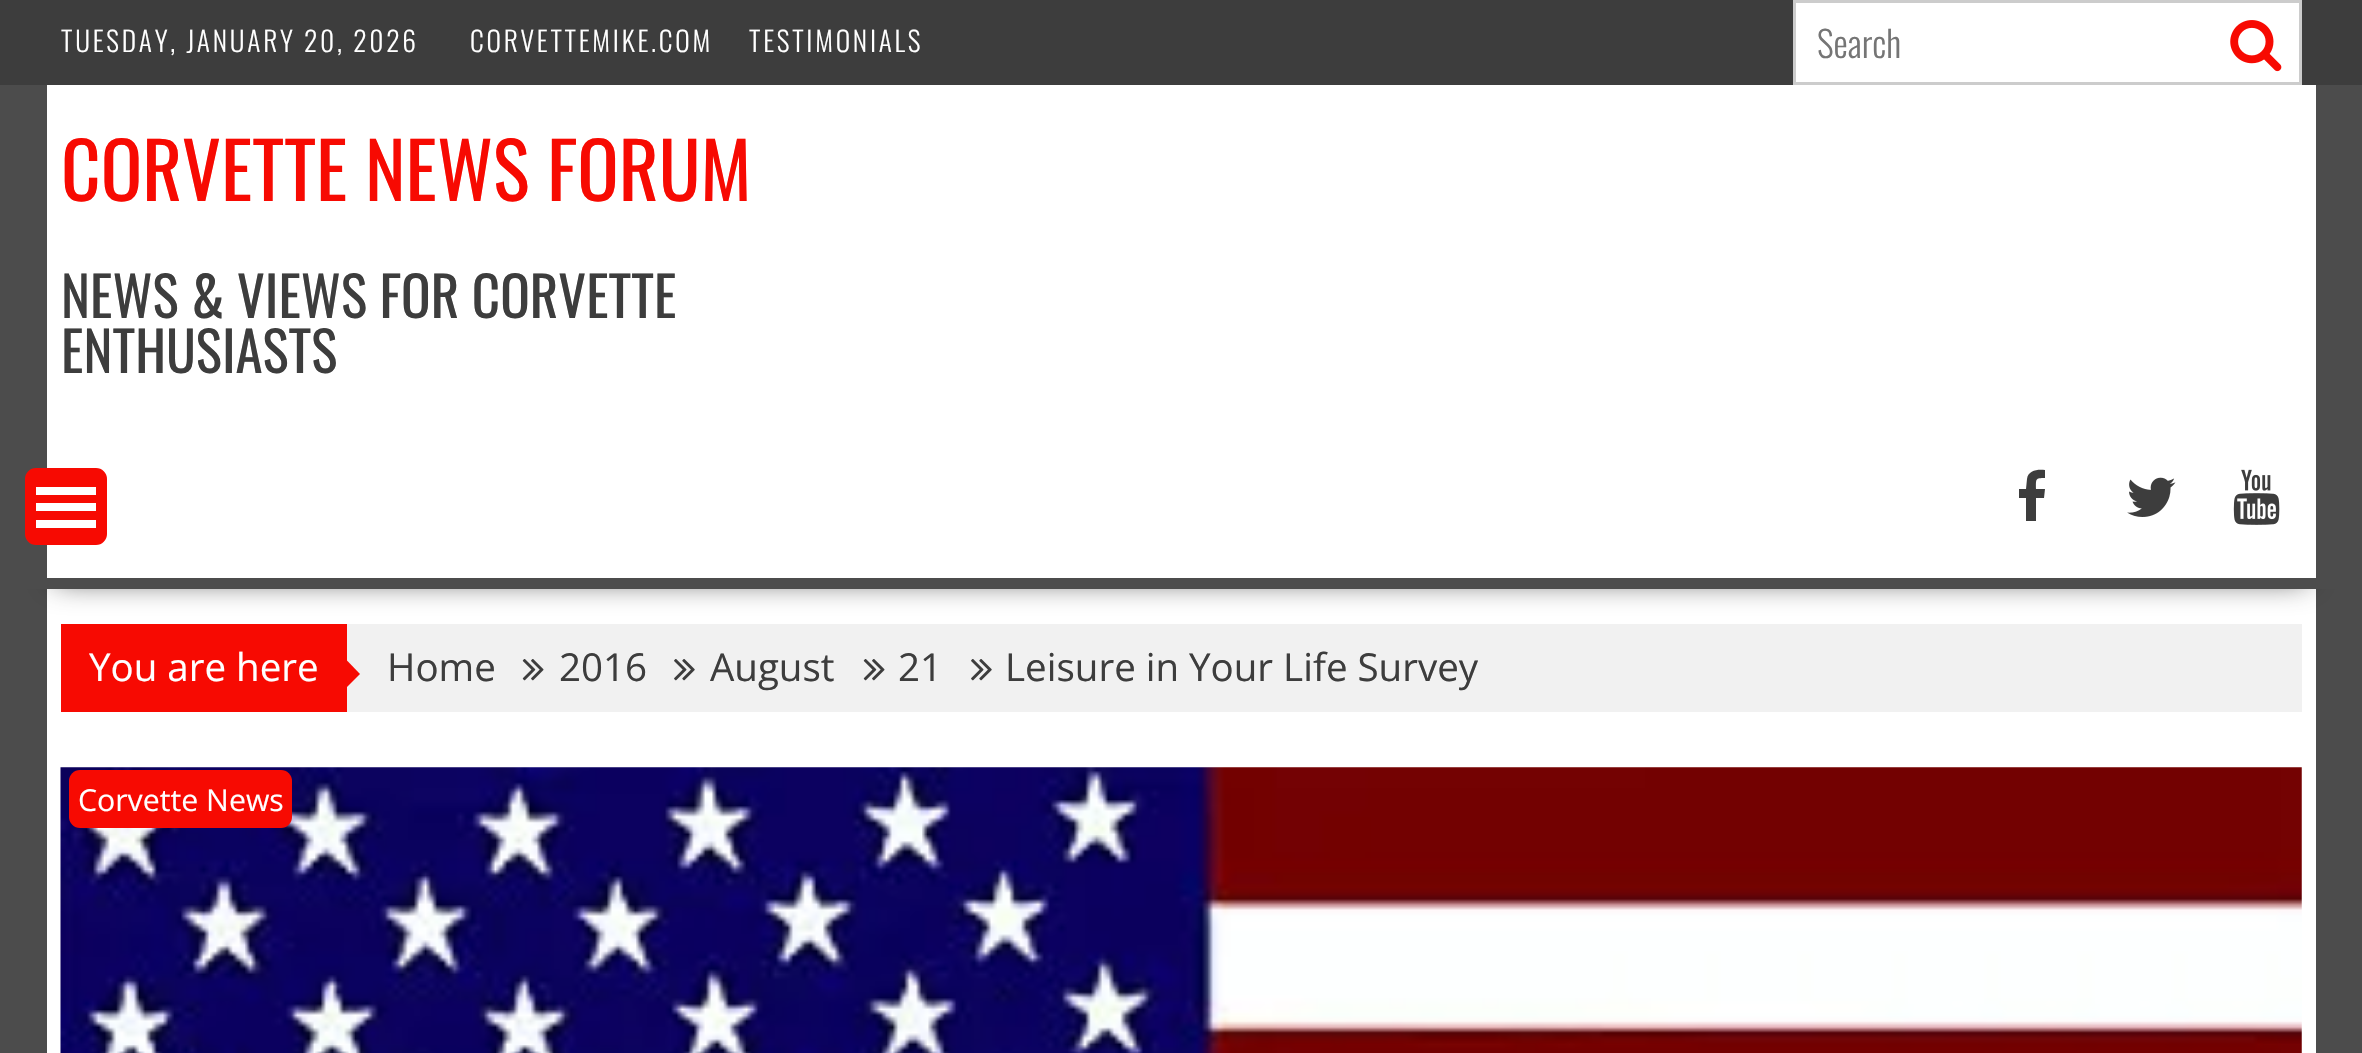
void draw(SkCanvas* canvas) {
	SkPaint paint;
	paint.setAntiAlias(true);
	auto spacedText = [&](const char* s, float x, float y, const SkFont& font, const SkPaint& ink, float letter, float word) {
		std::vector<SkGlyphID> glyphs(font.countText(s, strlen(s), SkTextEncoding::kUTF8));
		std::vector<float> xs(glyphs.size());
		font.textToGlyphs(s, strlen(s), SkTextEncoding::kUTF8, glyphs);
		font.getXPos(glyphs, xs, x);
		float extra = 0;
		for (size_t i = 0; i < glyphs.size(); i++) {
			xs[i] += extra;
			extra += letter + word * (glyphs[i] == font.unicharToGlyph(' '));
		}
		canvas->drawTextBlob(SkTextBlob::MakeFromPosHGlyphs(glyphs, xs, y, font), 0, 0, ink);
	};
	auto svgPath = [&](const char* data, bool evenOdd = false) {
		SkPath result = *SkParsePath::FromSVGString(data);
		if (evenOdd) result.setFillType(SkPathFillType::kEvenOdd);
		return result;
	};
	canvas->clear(0xff4c4c4c);
	paint.setColor(0xff3d3d3d);
	canvas->drawRect(SkRect::MakeXYWH(0, 0, 2362, 85), paint);
	SkFont f1(fontMgr->matchFamilyStyle("Oswald", SkFontStyle(300, SkFontStyle::kNormal_Width, SkFontStyle::kUpright_Slant)), 27.5);
	f1.setSubpixel(true);
	paint.setColor(0xffffffff);
	spacedText("TUESDAY, JANUARY 20, 2026", 61, 52, f1, paint, 2.75, 0);
	spacedText("CORVETTEMIKE.COM", 470, 52, f1, paint, 2.75, 0);
	spacedText("TESTIMONIALS", 749, 52, f1, paint, 2.75, 0);
	canvas->drawRect(SkRect::MakeXYWH(1794.5, 1.5, 506, 82), paint);
	paint.setStroke(true);
	paint.setStrokeWidth(3);
	paint.setColor(0xffcccccc);
	canvas->drawRect(SkRect::MakeXYWH(1794.5, 1.5, 506, 82), paint);
	SkFont f2(fontMgr->matchFamilyStyle("Oswald", SkFontStyle(300, SkFontStyle::kNormal_Width, SkFontStyle::kUpright_Slant)), 36);
	f2.setSubpixel(true);
	paint.setStroke(false);
	paint.setColor(0xff757575);
	canvas->drawString("Search", 1817, 58, f2, paint);
	canvas->drawImageRect(SkImages::DeferredFromEncodedData(SkData::MakeFromFileName("img1.png")), SkRect::MakeXYWH(2230, 20, 52, 52), SkSamplingOptions());
	paint.setColor(0xffffffff);
	canvas->drawRect(SkRect::MakeXYWH(47, 85, 2269, 361), paint);
	SkFont f3(fontMgr->matchFamilyStyle("Oswald", SkFontStyle::Normal()), 77);
	f3.setSubpixel(true);
	paint.setColor(0xfff70a02);
	canvas->drawString("CORVETTE NEWS FORUM", 61, 201, f3, paint);
	SkFont f4(fontMgr->matchFamilyStyle("Oswald", SkFontStyle::Normal()), 55);
	f4.setSubpixel(true);
	paint.setColor(0xff3d3d3d);
	canvas->drawString("NEWS & VIEWS FOR CORVETTE", 61, 318, f4, paint);
	canvas->drawString("ENTHUSIASTS", 61, 373, f4, paint);
	paint.setColor(0xffffffff);
	canvas->drawRect(SkRect::MakeXYWH(47, 589, 2269, 464), paint);
	paint.setColor(0xfff1f1f1);
	canvas->drawRect(SkRect::MakeXYWH(347, 624, 1955, 88), paint);
	canvas->save();
	canvas->clipPath(svgPath("M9 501H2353V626H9ZM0 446H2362V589H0Z", true), true);
	paint.setColor(0xbf000000);
	paint.setMaskFilter(SkMaskFilter::MakeBlur(kNormal_SkBlurStyle, 15));
	canvas->drawRect(SkRect::MakeXYWH(55, 547, 2252, 33), paint);
	paint.setMaskFilter(nullptr);
	canvas->restore();
	paint.setColor(0xffffffff);
	canvas->drawRect(SkRect::MakeXYWH(47, 446, 2269, 132), paint);
	paint.setColor(0xff3d3d3d);
	canvas->drawPath(svgPath("M2045 470V478C2035 478 2036 479 2036 489H2045L2044 498H2036V521H2026V498H2019V489H2026L2027 479C2028 470 2038 469 2045 470Z"), paint);
	canvas->drawImageRect(SkImages::DeferredFromEncodedData(SkData::MakeFromFileName("img2.png")), SkRect::MakeXYWH(2127, 477, 49, 40), SkSamplingOptions());
	canvas->drawImageRect(SkImages::DeferredFromEncodedData(SkData::MakeFromFileName("img3.png")), SkRect::MakeXYWH(2233, 469, 47, 56), SkSamplingOptions());
	paint.setColor(0xfff70a02);
	canvas->drawRoundRect(SkRect::MakeXYWH(26.5, 469.5, 79, 74), 9.5, 9.5, paint);
	paint.setStroke(true);
	canvas->drawRoundRect(SkRect::MakeXYWH(26.5, 469.5, 79, 74), 9.5, 9.5, paint);
	paint.setStroke(false);
	paint.setColor(0xffffffff);
	canvas->drawRect(SkRect::MakeXYWH(36, 520, 60, 8), paint);
	canvas->drawRect(SkRect::MakeXYWH(36, 503, 60, 8), paint);
	canvas->drawRect(SkRect::MakeXYWH(36, 487, 60, 8), paint);
	paint.setColor(0xfff70a02);
	canvas->drawRect(SkRect::MakeXYWH(61, 624, 286, 88), paint);
	SkFont f5(fontMgr->matchFamilyStyle("Open Sans", SkFontStyle::Normal()), 38.5);
	f5.setSubpixel(true);
	paint.setColor(0xffffffff);
	canvas->drawString("You are here", 89, 681, f5, paint);
	paint.setColor(0xfff70a02);
	canvas->drawPath(svgPath("M346.5 687.5V660L360 674Z"), paint);
	paint.setColor(0xff3d3d3d);
	canvas->drawString("Home", 387, 681, f5, paint);
	canvas->drawImageRect(SkImages::DeferredFromEncodedData(SkData::MakeFromFileName("img4.png")), SkRect::MakeXYWH(522, 659, 22, 22), SkSamplingOptions());
	canvas->drawString("2016", 559, 681, f5, paint);
	canvas->drawImageRect(SkImages::DeferredFromEncodedData(SkData::MakeFromFileName("img5.png")), SkRect::MakeXYWH(674, 659, 21, 22), SkSamplingOptions());
	canvas->drawString("August", 710, 681, f5, paint);
	canvas->drawImageRect(SkImages::DeferredFromEncodedData(SkData::MakeFromFileName("img4.png")), SkRect::MakeXYWH(863, 659, 22, 22), SkSamplingOptions());
	canvas->drawString("21", 898, 681, f5, paint);
	canvas->drawImageRect(SkImages::DeferredFromEncodedData(SkData::MakeFromFileName("img5.png")), SkRect::MakeXYWH(971, 659, 21, 22), SkSamplingOptions());
	canvas->drawString("Leisure in Your Life Survey", 1005, 681, f5, paint);
	canvas->drawImageRect(SkImages::DeferredFromEncodedData(SkData::MakeFromFileName("img6.png")), SkRect::MakeXYWH(60, 767, 2242, 286), SkSamplingOptions());
	paint.setColor(0xfff70a02);
	canvas->drawRoundRect(SkRect::MakeXYWH(69, 770, 223, 58), 11, 11, paint);
	SkFont f6(fontMgr->matchFamilyStyle("Open Sans", SkFontStyle::Normal()), 30.25);
	f6.setSubpixel(true);
	paint.setColor(0xffffffff);
	canvas->drawString("Corvette News", 78, 811, f6, paint);
}
